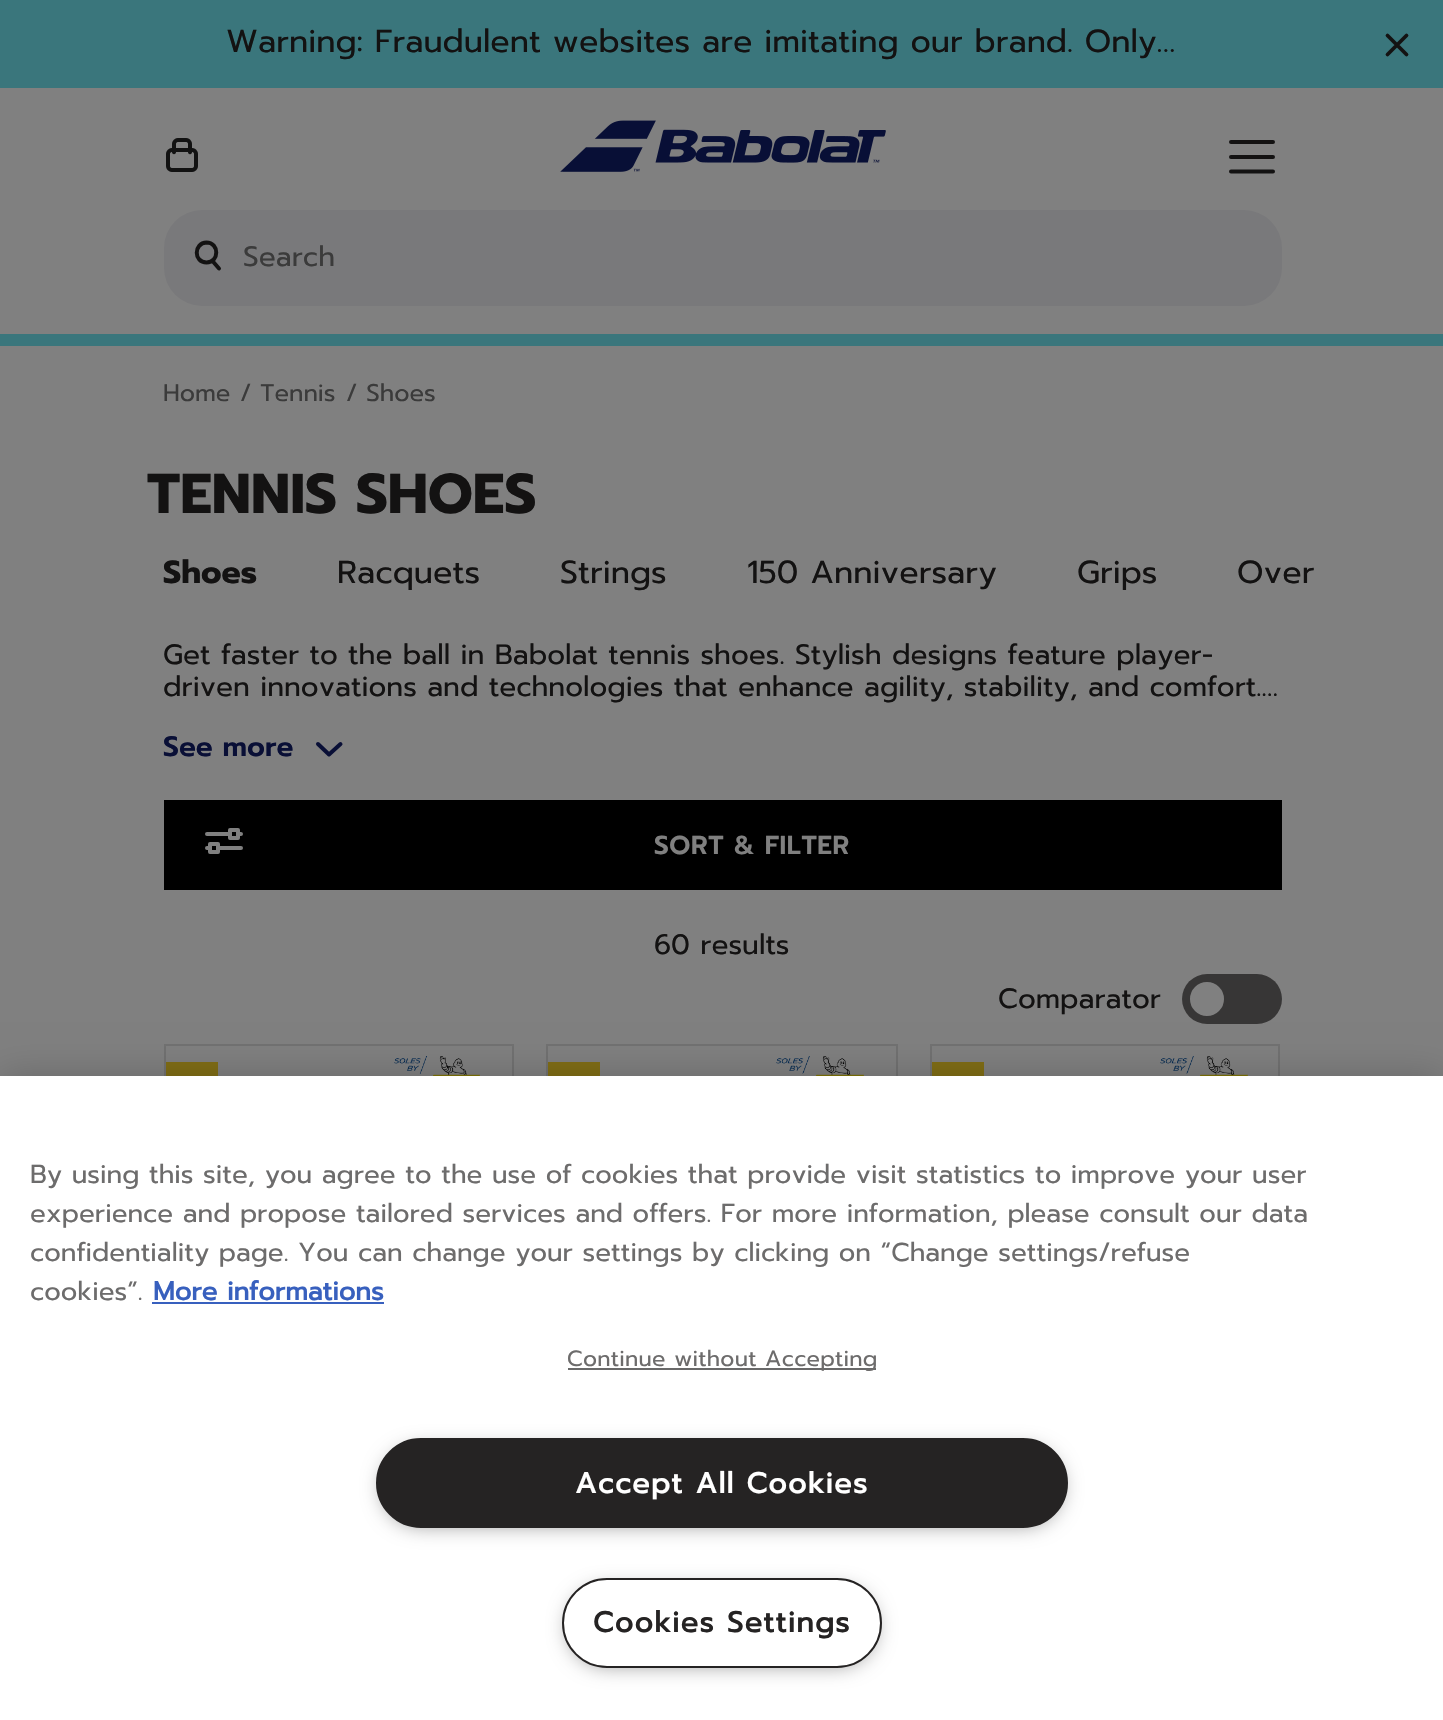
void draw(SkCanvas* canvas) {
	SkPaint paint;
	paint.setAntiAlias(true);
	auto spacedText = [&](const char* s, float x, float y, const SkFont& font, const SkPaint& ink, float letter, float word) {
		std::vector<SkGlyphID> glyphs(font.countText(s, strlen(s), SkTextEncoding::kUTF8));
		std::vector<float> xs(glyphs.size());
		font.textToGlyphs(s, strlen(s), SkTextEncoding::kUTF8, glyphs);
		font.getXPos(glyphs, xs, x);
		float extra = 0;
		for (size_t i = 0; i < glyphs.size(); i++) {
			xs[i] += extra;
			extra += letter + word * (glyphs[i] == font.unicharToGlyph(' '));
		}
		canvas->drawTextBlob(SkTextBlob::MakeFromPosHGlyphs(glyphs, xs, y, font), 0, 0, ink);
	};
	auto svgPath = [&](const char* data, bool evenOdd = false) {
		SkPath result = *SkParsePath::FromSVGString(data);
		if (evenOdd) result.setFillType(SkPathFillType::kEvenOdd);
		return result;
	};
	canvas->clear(0xff808080);
	paint.setColor(0xff3a767c);
	canvas->drawRect(SkRect::MakeXYWH(0, 334, 1443, 12), paint);
	canvas->drawRect(SkRect::MakeXYWH(0, 0, 1443, 88), paint);
	SkFont f1(fontMgr->matchFamilyStyle("Prompt", SkFontStyle::Normal()), 32);
	f1.setSubpixel(true);
	paint.setColor(0xff131212);
	canvas->drawString("Warning: Fraudulent websites are imitating our brand. Only…", 226, 52, f1, paint);
	paint.setStroke(true);
	paint.setStrokeWidth(3.8);
	paint.setStrokeCap(SkPaint::kRound_Cap);
	paint.setStrokeJoin(SkPaint::kRound_Join);
	canvas->drawPath(svgPath("M1387.5 35.5L1406.5 54.5M1387.5 54.5L1406.5 35.5"), paint);
	canvas->drawImageRect(SkImages::DeferredFromEncodedData(SkData::MakeFromFileName("img1.png")), SkRect::MakeXYWH(166, 138, 32, 34), SkSamplingOptions());
	canvas->drawImageRect(SkImages::DeferredFromEncodedData(SkData::MakeFromFileName("img2.png")), SkRect::MakeXYWH(560, 120, 326, 52), SkSamplingOptions());
	paint.setStrokeWidth(4);
	canvas->drawPath(svgPath("M1231 142H1273M1231 157H1273M1231 171.5H1273"), paint);
	paint.setStroke(false);
	paint.setColor(0xff79797b);
	canvas->drawRoundRect(SkRect::MakeXYWH(164, 210, 1118, 96), 38, 38, paint);
	paint.setStroke(true);
	paint.setColor(0xff131212);
	canvas->drawPath(svgPath("M212.5 261L219 268.5M206.5 262.5C219.5 262.5 219.5 242.5 206.5 242.5C193.5 243 193.5 262.5 206.5 262.5Z"), paint);
	SkFont f2(fontMgr->matchFamilyStyle("Prompt", SkFontStyle::Normal()), 28);
	f2.setSubpixel(true);
	paint.setStroke(false);
	paint.setColor(0xff3b3b3b);
	canvas->drawString("Search", 243, 266, f2, paint);
	SkFont f3(fontMgr->matchFamilyStyle("Prompt", SkFontStyle::Normal()), 24);
	f3.setSubpixel(true);
	canvas->drawString("Home", 163, 401, f3, paint);
	canvas->drawString("/ Tennis", 240, 401, f3, paint);
	canvas->drawString("/ Shoes", 346, 401, f3, paint);
	SkFont f4(fontMgr->matchFamilyStyle("Prompt", SkFontStyle::Bold()), 56);
	f4.setSubpixel(true);
	paint.setColor(0xff131212);
	canvas->drawString("TENNIS SHOES", 147, 513, f4, paint);
	SkFont f5(fontMgr->matchFamilyStyle("Prompt", SkFontStyle::Bold()), 32);
	f5.setSubpixel(true);
	canvas->drawString("Shoes", 163, 583, f5, paint);
	canvas->drawString("Racquets", 337, 583, f1, paint);
	canvas->drawString("Strings", 560, 583, f1, paint);
	canvas->drawString("150 Anniversary", 747, 583, f1, paint);
	canvas->drawString("Grips", 1077, 583, f1, paint);
	canvas->drawString("Over", 1237, 583, f1, paint);
	canvas->drawString("Get faster to the ball in Babolat tennis shoes. Stylish designs feature player-", 163, 664, f2, paint);
	canvas->drawString("driven innovations and technologies that enhance agility, stability, and comfort.…", 163, 696, f2, paint);
	SkFont f6(fontMgr->matchFamilyStyle("Prompt", SkFontStyle(600, SkFontStyle::kNormal_Width, SkFontStyle::kUpright_Slant)), 28);
	f6.setSubpixel(true);
	paint.setColor(0xff090f36);
	canvas->drawString("See more", 163, 756, f6, paint);
	paint.setStroke(true);
	canvas->drawPath(svgPath("M340.5 744L329 754.5L318 744"), paint);
	paint.setStroke(false);
	paint.setColor(0xff000000);
	canvas->drawRect(SkRect::MakeXYWH(164, 800, 1118, 90), paint);
	paint.setStroke(true);
	paint.setColor(0xff808080);
	canvas->drawPath(svgPath("M207 848H209.5M218 848H241M210 844H218V852H210ZM230 830H238V838H230ZM207 834H230M238 834H241"), paint);
	SkFont f7(fontMgr->matchFamilyStyle("Prompt", SkFontStyle(600, SkFontStyle::kNormal_Width, SkFontStyle::kUpright_Slant)), 26);
	f7.setSubpixel(true);
	paint.setStroke(false);
	spacedText("SORT & FILTER", 654, 854, f7, paint, 0.6, 0);
	paint.setColor(0xff131212);
	canvas->drawString("60 results", 654, 954, f2, paint);
	canvas->drawString("Comparator", 998, 1008, f2, paint);
	paint.setColor(0xff373636);
	canvas->drawRoundRect(SkRect::MakeXYWH(1182, 974, 100, 50), 25, 25, paint);
	paint.setColor(0xff808080);
	canvas->drawCircle(1207, 999, 18, paint);
	paint.setStroke(true);
	paint.setStrokeWidth(2);
	paint.setStrokeCap(SkPaint::kButt_Cap);
	paint.setStrokeJoin(SkPaint::kMiter_Join);
	paint.setColor(0xff373636);
	canvas->drawCircle(1207, 999, 18, paint);
	paint.setColor(0xff717171);
	canvas->drawRect(SkRect::MakeXYWH(165, 1045, 348, 588), paint);
	paint.setStroke(false);
	paint.setColor(0xff806d15);
	canvas->drawRect(SkRect::MakeXYWH(166, 1062, 52, 14), paint);
	canvas->drawImageRect(SkImages::DeferredFromEncodedData(SkData::MakeFromFileName("img3.png")), SkRect::MakeXYWH(394, 1056, 86, 20), SkSamplingOptions());
	paint.setStroke(true);
	paint.setColor(0xff717171);
	canvas->drawRect(SkRect::MakeXYWH(547, 1045, 350, 588), paint);
	paint.setStroke(false);
	paint.setColor(0xff806d15);
	canvas->drawRect(SkRect::MakeXYWH(548, 1062, 52, 14), paint);
	canvas->drawImageRect(SkImages::DeferredFromEncodedData(SkData::MakeFromFileName("img4.png")), SkRect::MakeXYWH(776, 1056, 88, 20), SkSamplingOptions());
	paint.setStroke(true);
	paint.setColor(0xff717171);
	canvas->drawRect(SkRect::MakeXYWH(931, 1045, 348, 588), paint);
	paint.setStroke(false);
	paint.setColor(0xff806d15);
	canvas->drawRect(SkRect::MakeXYWH(932, 1062, 52, 14), paint);
	canvas->drawImageRect(SkImages::DeferredFromEncodedData(SkData::MakeFromFileName("img5.png")), SkRect::MakeXYWH(1160, 1056, 88, 20), SkSamplingOptions());
	paint.setColor(0x33000000);
	paint.setMaskFilter(SkMaskFilter::MakeBlur(kNormal_SkBlurStyle, 18));
	canvas->drawRect(SkRect::MakeXYWH(0, 1076, 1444, 644), paint);
	paint.setMaskFilter(nullptr);
	paint.setColor(0xffffffff);
	canvas->drawRect(SkRect::MakeXYWH(0, 1076, 1443, 644), paint);
	SkFont f8(fontMgr->matchFamilyStyle("Prompt", SkFontStyle::Normal()), 26);
	f8.setSubpixel(true);
	paint.setColor(0xff6d6c6c);
	canvas->drawString("By using this site, you agree to the use of cookies that provide visit statistics to improve your user", 30, 1183, f8, paint);
	canvas->drawString("experience and propose tailored services and offers. For more information, please consult our data", 30, 1222, f8, paint);
	canvas->drawString("confidentiality page. You can change your settings by clicking on “Change settings/refuse", 30, 1261, f8, paint);
	canvas->drawString("cookies”.", 30, 1300, f8, paint);
	SkFont f9(fontMgr->matchFamilyStyle("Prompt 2", SkFontStyle::Bold()), 26);
	f9.setSubpixel(true);
	paint.setColor(0xff3860be);
	canvas->drawString("More informations", 153, 1300, f9, paint);
	canvas->drawRect(SkRect::MakeXYWH(152, 1302, 232, 2), paint);
	paint.setColor(0xff696969);
	canvas->drawRect(SkRect::MakeXYWH(568, 1368, 308, 2), paint);
	SkFont f10(fontMgr->matchFamilyStyle("Prompt", SkFontStyle::Normal()), 22.1);
	f10.setSubpixel(true);
	paint.setColor(0xff6d6c6c);
	spacedText("Continue without Accepting", 567, 1366, f10, paint, 0.25, 0);
	paint.setColor(0xff999999);
	paint.setMaskFilter(SkMaskFilter::MakeBlur(kNormal_SkBlurStyle, 10));
	canvas->drawRoundRect(SkRect::MakeXYWH(382, 1448, 680, 78), 39, 39, paint);
	paint.setMaskFilter(nullptr);
	paint.setColor(0xff252323);
	canvas->drawRoundRect(SkRect::MakeXYWH(377, 1439, 690, 88), 44, 44, paint);
	paint.setStroke(true);
	canvas->drawRoundRect(SkRect::MakeXYWH(377, 1439, 690, 88), 44, 44, paint);
	SkFont f11(fontMgr->matchFamilyStyle("Prompt 2", SkFontStyle::Bold()), 28.75);
	f11.setSubpixel(true);
	paint.setStroke(false);
	paint.setColor(0xffffffff);
	spacedText("Accept All Cookies", 575, 1493, f11, paint, 1.4, 0);
	paint.setColor(0xff999999);
	paint.setMaskFilter(SkMaskFilter::MakeBlur(kNormal_SkBlurStyle, 10));
	canvas->drawRoundRect(SkRect::MakeXYWH(568, 1588, 308, 78), 39, 39, paint);
	paint.setMaskFilter(nullptr);
	paint.setColor(0xffffffff);
	canvas->drawRoundRect(SkRect::MakeXYWH(563, 1579, 318, 88), 44, 44, paint);
	paint.setStroke(true);
	paint.setColor(0xff252323);
	canvas->drawRoundRect(SkRect::MakeXYWH(563, 1579, 318, 88), 44, 44, paint);
	paint.setStroke(false);
	spacedText("Cookies Settings", 593, 1632, f11, paint, 1.4, 0);
}
